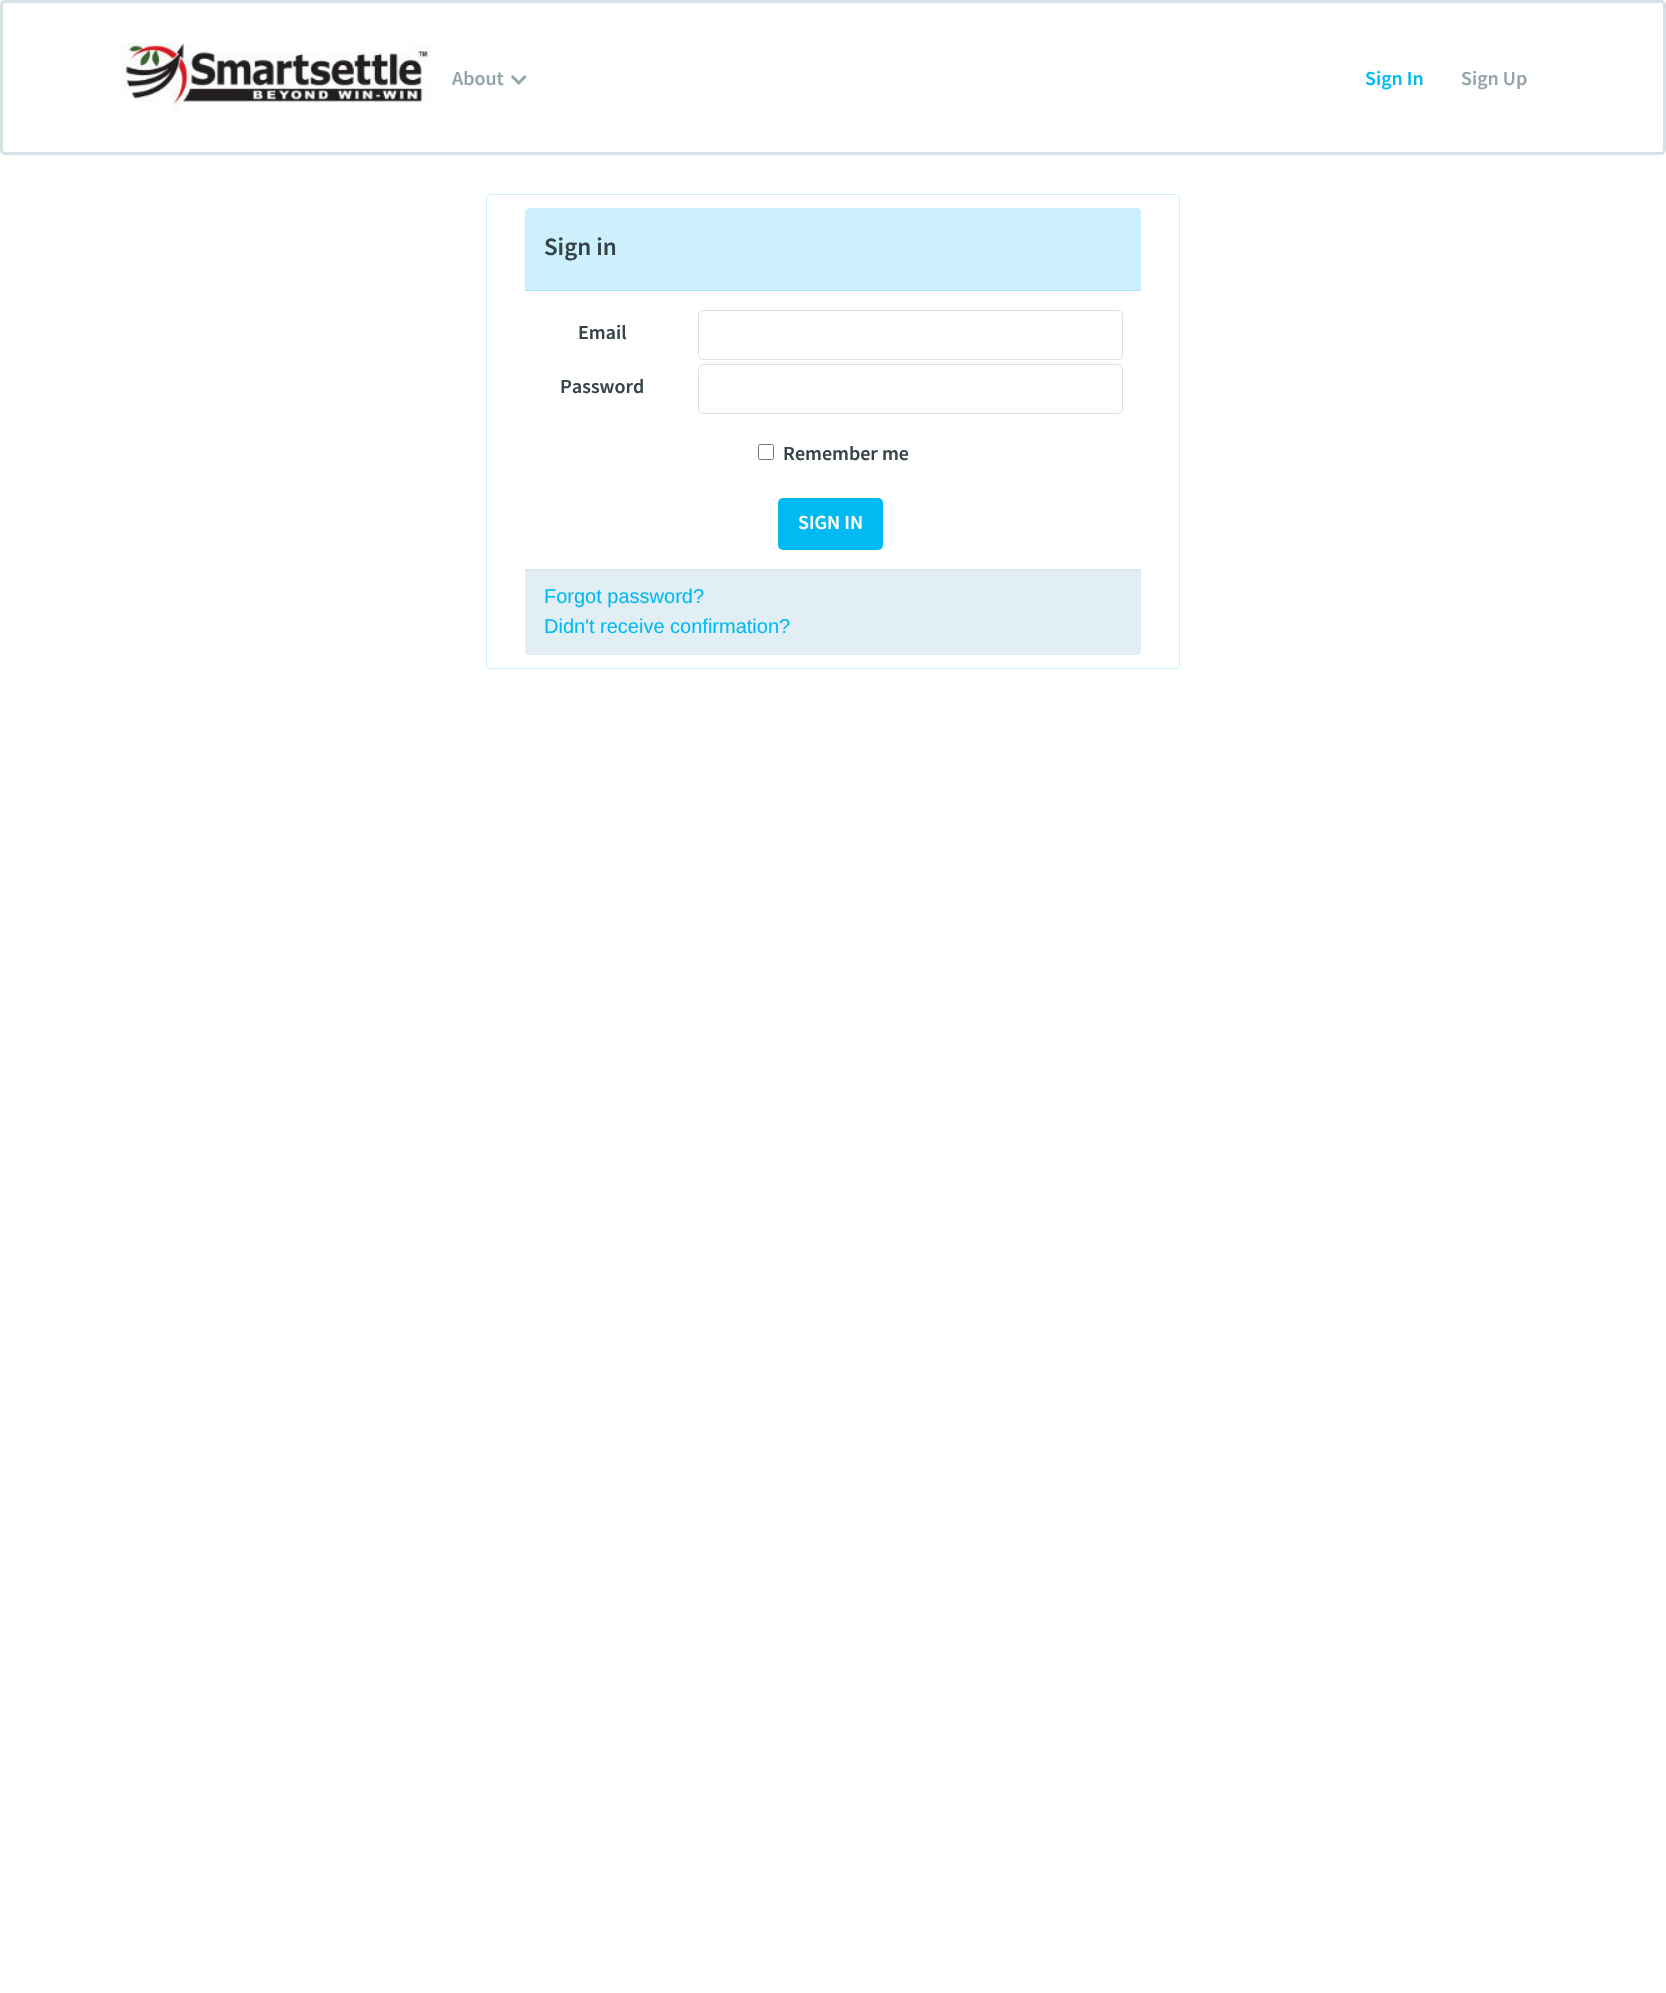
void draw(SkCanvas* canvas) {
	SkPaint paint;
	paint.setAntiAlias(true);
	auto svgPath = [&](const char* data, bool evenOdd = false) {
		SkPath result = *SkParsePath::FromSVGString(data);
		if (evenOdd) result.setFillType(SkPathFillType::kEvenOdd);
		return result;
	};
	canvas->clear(0xffffffff);
	paint.setStroke(true);
	paint.setStrokeWidth(3);
	paint.setColor(0xffd6e1e5);
	canvas->drawRoundRect(SkRect::MakeXYWH(1.5, 1.5, 1663, 152), 3.5, 3.5, paint);
	canvas->drawImageRect(SkImages::DeferredFromEncodedData(SkData::MakeFromFileName("img1.png")), SkRect::MakeXYWH(121, 42, 310, 70), SkSamplingOptions());
	SkFont f1(fontMgr->matchFamilyStyle("Source Sans Pro", SkFontStyle(600, SkFontStyle::kNormal_Width, SkFontStyle::kUpright_Slant)), 20);
	f1.setSubpixel(true);
	paint.setStroke(false);
	paint.setColor(0xff93a4aa);
	canvas->drawString("About", 452, 85, f1, paint);
	canvas->drawImageRect(SkImages::DeferredFromEncodedData(SkData::MakeFromFileName("img2.png")), SkRect::MakeXYWH(511, 75, 16, 10), SkSamplingOptions());
	paint.setColor(0xff02baf2);
	canvas->drawString("Sign In", 1365, 85, f1, paint);
	paint.setColor(0xff93a4aa);
	canvas->drawString("Sign Up", 1461, 85, f1, paint);
	paint.setStroke(true);
	paint.setStrokeWidth(1);
	paint.setColor(0xffccf1fc);
	canvas->drawRoundRect(SkRect::MakeXYWH(486.5, 194.5, 693, 474), 4.5, 4.5, paint);
	paint.setStroke(false);
	canvas->drawPath(svgPath("M529 208H1137C1139 208 1141 210 1141 212V291H525V212C525 210 527 208 529 208Z"), paint);
	paint.setColor(0xffa4e6fa);
	canvas->drawRect(SkRect::MakeXYWH(525, 290, 616, 1), paint);
	SkFont f2(fontMgr->matchFamilyStyle("Source Sans Pro", SkFontStyle(600, SkFontStyle::kNormal_Width, SkFontStyle::kUpright_Slant)), 25);
	f2.setSubpixel(true);
	paint.setColor(0xff364347);
	canvas->drawString("Sign in", 544, 255, f2, paint);
	canvas->drawString("Email", 578, 339, f1, paint);
	paint.setStroke(true);
	paint.setColor(0xffd6e1e5);
	canvas->drawRoundRect(SkRect::MakeXYWH(698.5, 310.5, 424, 49), 4.5, 4.5, paint);
	paint.setStroke(false);
	paint.setColor(0xff364347);
	canvas->drawString("Password", 560, 393, f1, paint);
	paint.setStroke(true);
	paint.setColor(0xffd6e1e5);
	canvas->drawRoundRect(SkRect::MakeXYWH(698.5, 364.5, 424, 49), 4.5, 4.5, paint);
	paint.setColor(0xff767676);
	canvas->drawRoundRect(SkRect::MakeXYWH(758.5, 444.5, 15, 15), 2, 2, paint);
	paint.setStroke(false);
	paint.setColor(0xff364347);
	canvas->drawString("Remember me", 783, 460, f1, paint);
	paint.setColor(0xff02baf2);
	canvas->drawRoundRect(SkRect::MakeXYWH(778, 498, 105, 52), 5, 5, paint);
	paint.setColor(0xffffffff);
	canvas->drawString("SIGN IN", 798, 529, f1, paint);
	paint.setColor(0xffe1eef3);
	canvas->drawPath(svgPath("M525 569H1141V651C1141 653 1139 655 1137 655H529C527 655 525 653 525 651Z"), paint);
	paint.setColor(0xffd6e1e5);
	canvas->drawRect(SkRect::MakeXYWH(525, 569, 616, 1), paint);
	SkFont f3(fontMgr->matchFamilyStyle("Liberation Sans", SkFontStyle::Normal()), 20);
	f3.setSubpixel(true);
	paint.setColor(0xff02baf2);
	canvas->drawString("Forgot password?", 544, 603, f3, paint);
	canvas->drawString("Didn't receive confirmation?", 544, 633, f3, paint);
}
